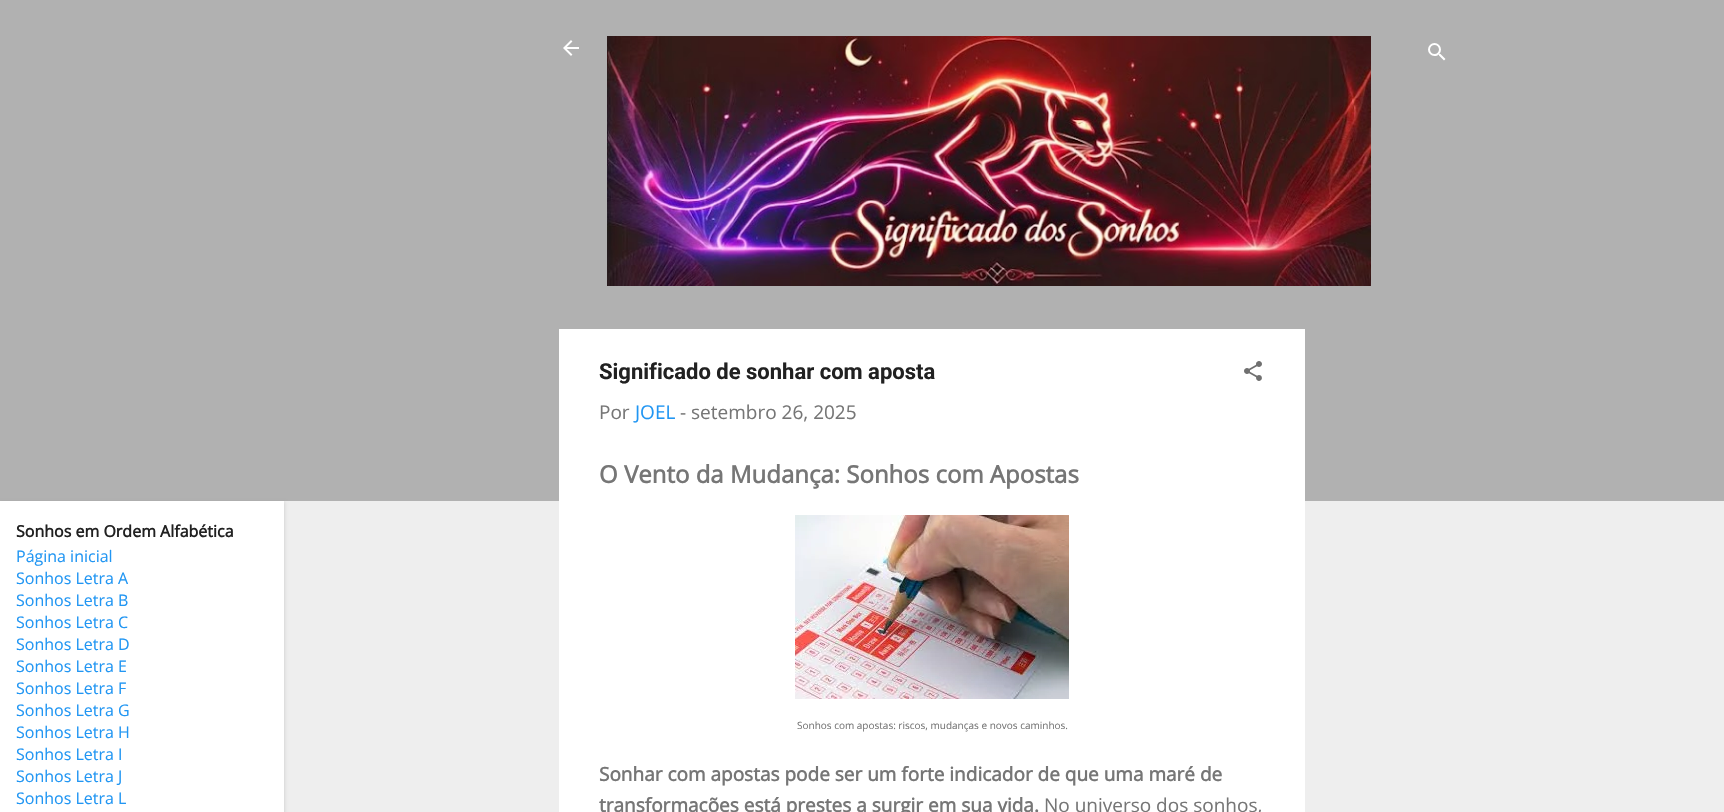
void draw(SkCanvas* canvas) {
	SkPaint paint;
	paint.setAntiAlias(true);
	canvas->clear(0xffeeeeee);
	paint.setColor(0xffb1b1b1);
	canvas->drawRect(SkRect::MakeXYWH(0, 0, 1724, 501), paint);
	paint.setColor(0x1a000000);
	paint.setMaskFilter(SkMaskFilter::MakeBlur(kNormal_SkBlurStyle, 1.5));
	canvas->drawRect(SkRect::MakeXYWH(1, 502, 284, 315), paint);
	paint.setMaskFilter(nullptr);
	paint.setColor(0xffffffff);
	canvas->drawRect(SkRect::MakeXYWH(0, 501, 284, 311), paint);
	SkFont f1(fontMgr->matchFamilyStyle("Open Sans", SkFontStyle::Bold()), 16);
	f1.setSubpixel(true);
	paint.setColor(0xff212121);
	canvas->drawString("Sonhos em Ordem Alfabética", 16, 537, f1, paint);
	SkFont f2(fontMgr->matchFamilyStyle("Open Sans", SkFontStyle::Normal()), 16);
	f2.setSubpixel(true);
	paint.setColor(0xff2196f3);
	canvas->drawString("Página inicial", 16, 562, f2, paint);
	canvas->drawString("Sonhos Letra A", 16, 584, f2, paint);
	canvas->drawString("Sonhos Letra B", 16, 606, f2, paint);
	canvas->drawString("Sonhos Letra C", 16, 628, f2, paint);
	canvas->drawString("Sonhos Letra D", 16, 650, f2, paint);
	canvas->drawString("Sonhos Letra E", 16, 672, f2, paint);
	canvas->drawString("Sonhos Letra F", 16, 694, f2, paint);
	canvas->drawString("Sonhos Letra G", 16, 716, f2, paint);
	canvas->drawString("Sonhos Letra H", 16, 738, f2, paint);
	canvas->drawString("Sonhos Letra I", 16, 760, f2, paint);
	canvas->drawString("Sonhos Letra J", 16, 782, f2, paint);
	canvas->drawString("Sonhos Letra L", 16, 804, f2, paint);
	canvas->drawImageRect(SkImages::DeferredFromEncodedData(SkData::MakeFromFileName("img1.png")), SkRect::MakeXYWH(563, 40, 16, 16), SkSamplingOptions());
	canvas->drawImageRect(SkImages::DeferredFromEncodedData(SkData::MakeFromFileName("img2.png")), SkRect::MakeXYWH(607, 36, 764, 250), SkSamplingOptions());
	canvas->drawImageRect(SkImages::DeferredFromEncodedData(SkData::MakeFromFileName("img3.png")), SkRect::MakeXYWH(1428, 43, 18, 18), SkSamplingOptions());
	paint.setColor(0xffffffff);
	canvas->drawRect(SkRect::MakeXYWH(559, 329, 746, 483), paint);
	SkFont f3(fontMgr->matchFamilyStyle("Roboto", SkFontStyle::Bold()), 22);
	f3.setSubpixel(true);
	paint.setColor(0xff212121);
	canvas->drawString("Significado de sonhar com aposta", 599, 379, f3, paint);
	canvas->drawImageRect(SkImages::DeferredFromEncodedData(SkData::MakeFromFileName("img4.png")), SkRect::MakeXYWH(1244, 361, 18, 20), SkSamplingOptions());
	SkFont f4(fontMgr->matchFamilyStyle("Open Sans", SkFontStyle::Normal()), 19);
	f4.setSubpixel(true);
	paint.setColor(0xff767676);
	canvas->drawString("Por", 599, 419, f4, paint);
	paint.setColor(0xff2196f3);
	canvas->drawString("JOEL", 635, 419, f4, paint);
	paint.setColor(0xff767676);
	canvas->drawString("- setembro 26, 2025", 680, 419, f4, paint);
	SkFont f5(fontMgr->matchFamilyStyle("Open Sans", SkFontStyle::Bold()), 24);
	f5.setSubpixel(true);
	canvas->drawString("O Vento da Mudança: Sonhos com Apostas", 599, 483, f5, paint);
	canvas->drawImageRect(SkImages::DeferredFromEncodedData(SkData::MakeFromFileName("img5.png")), SkRect::MakeXYWH(795, 515, 274, 184), SkSamplingOptions());
	SkFont f6(fontMgr->matchFamilyStyle("Open Sans", SkFontStyle::Normal()), 10);
	f6.setSubpixel(true);
	canvas->drawString("Sonhos com apostas: riscos, mudanças e novos caminhos.", 797, 729, f6, paint);
	SkFont f7(fontMgr->matchFamilyStyle("Open Sans", SkFontStyle::Bold()), 19);
	f7.setSubpixel(true);
	canvas->drawString("Sonhar com apostas pode ser um forte indicador de que uma maré de", 599, 781, f7, paint);
	canvas->drawString("transformações está prestes a surgir em sua vida.", 599, 812, f7, paint);
	canvas->drawString("No universo dos sonhos,", 1044, 812, f4, paint);
}
